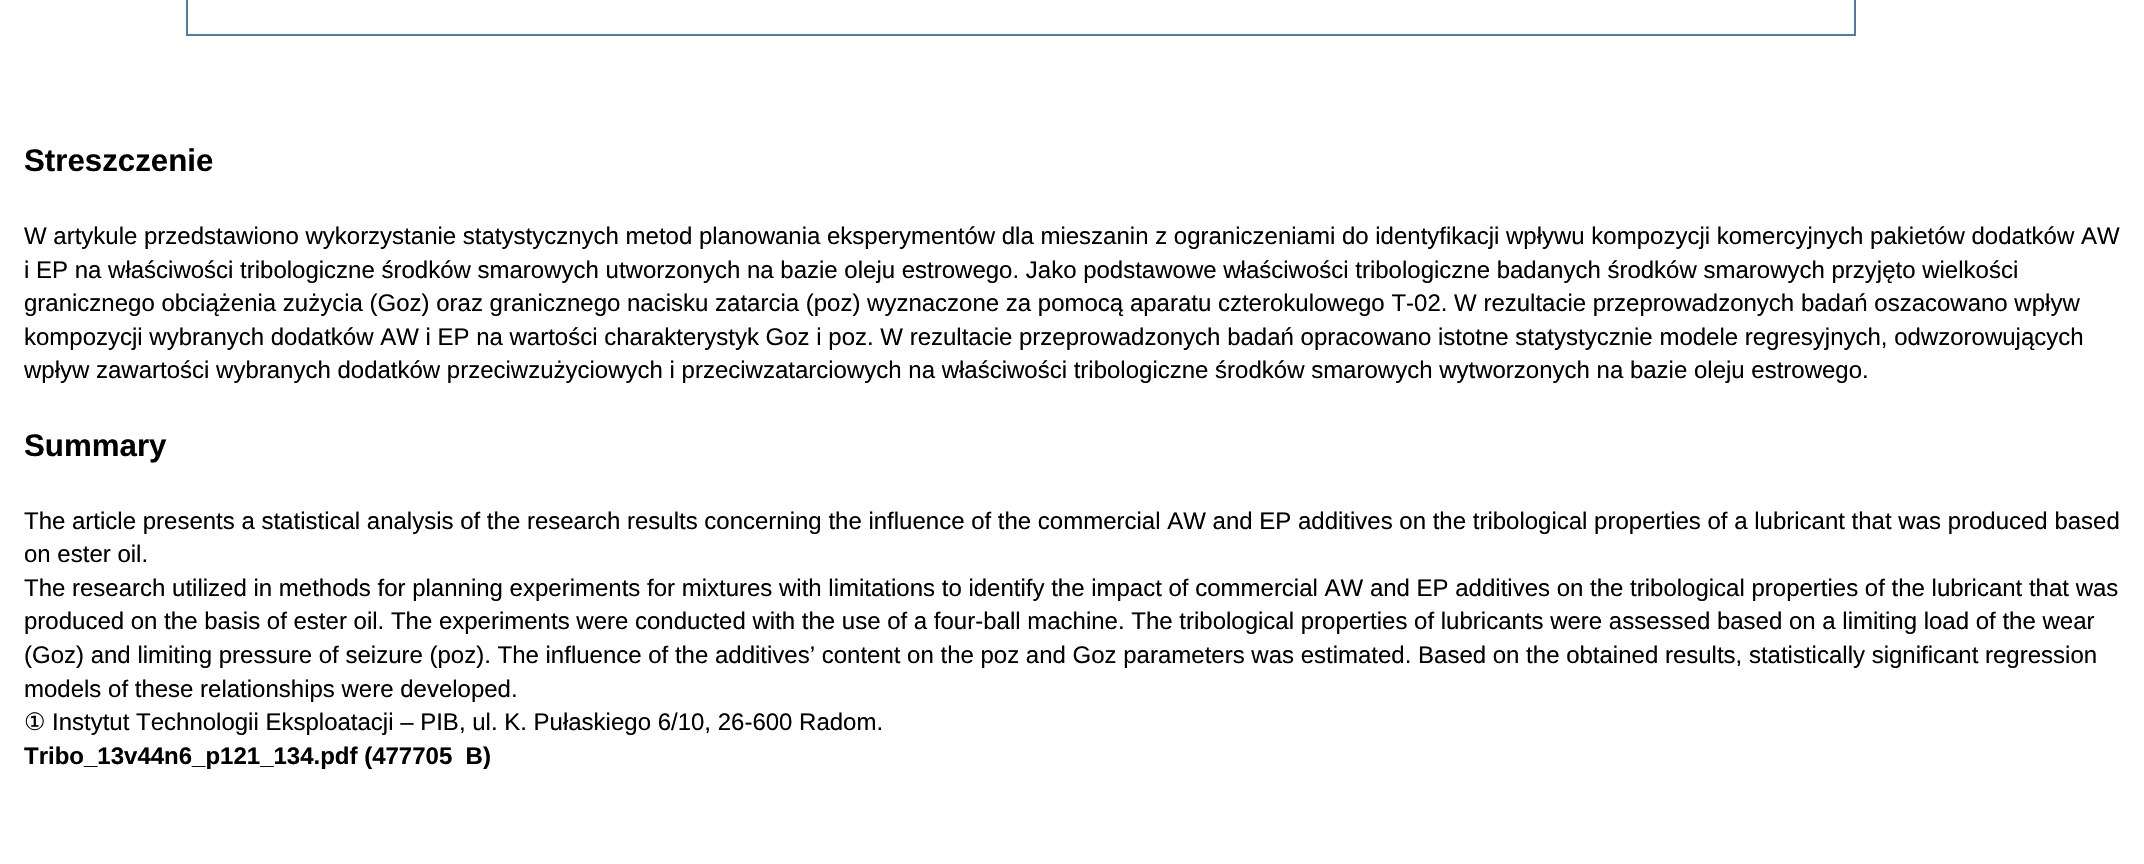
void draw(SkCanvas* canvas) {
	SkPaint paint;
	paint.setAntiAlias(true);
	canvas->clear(0xffffffff);
	paint.setStroke(true);
	paint.setStrokeWidth(2);
	paint.setColor(0xff527ca6);
	canvas->drawRect(SkRect::MakeXYWH(187, -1, 1668, 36), paint);
	SkFont f1(fontMgr->matchFamilyStyle("Liberation Sans", SkFontStyle::Bold()), 31.25);
	f1.setSubpixel(true);
	paint.setStroke(false);
	paint.setColor(0xff000000);
	canvas->drawString("Streszczenie", 24, 171, f1, paint);
	SkFont f2(fontMgr->matchFamilyStyle("Liberation Sans", SkFontStyle::Normal()), 24);
	f2.setSubpixel(true);
	canvas->drawString("W artykule przedstawiono wykorzystanie statystycznych metod planowania eksperymentów dla mieszanin z ograniczeniami do identyfikacji wpływu kompozycji komercyjnych pakietów dodatków AW", 24, 244, f2, paint);
	canvas->drawString("i EP na właściwości tribologiczne środków smarowych utworzonych na bazie oleju estrowego. Jako podstawowe właściwości tribologiczne badanych środków smarowych przyjęto wielkości", 24, 278, f2, paint);
	canvas->drawString("granicznego obciążenia zużycia (Goz) oraz granicznego nacisku zatarcia (poz) wyznaczone za pomocą aparatu czterokulowego T-02. W rezultacie przeprowadzonych badań oszacowano wpływ", 24, 311, f2, paint);
	canvas->drawString("kompozycji wybranych dodatków AW i EP na wartości charakterystyk Goz i poz. W rezultacie przeprowadzonych badań opracowano istotne statystycznie modele regresyjnych, odwzorowujących", 24, 345, f2, paint);
	canvas->drawString("wpływ zawartości wybranych dodatków przeciwzużyciowych i przeciwzatarciowych na właściwości tribologiczne środków smarowych wytworzonych na bazie oleju estrowego.", 24, 378, f2, paint);
	canvas->drawString("Summary", 24, 456, f1, paint);
	canvas->drawString("The article presents a statistical analysis of the research results concerning the influence of the commercial AW and EP additives on the tribological properties of a lubricant that was produced based", 24, 529, f2, paint);
	canvas->drawString("on ester oil.", 24, 562, f2, paint);
	canvas->drawString("The research utilized in methods for planning experiments for mixtures with limitations to identify the impact of commercial AW and EP additives on the tribological properties of the lubricant that was", 24, 596, f2, paint);
	canvas->drawString("produced on the basis of ester oil. The experiments were conducted with the use of a four-ball machine. The tribological properties of lubricants were assessed based on a limiting load of the wear", 24, 629, f2, paint);
	canvas->drawString("(Goz) and limiting pressure of seizure (poz). The influence of the additives’ content on the poz and Goz parameters was estimated. Based on the obtained results, statistically significant regression", 24, 663, f2, paint);
	canvas->drawString("models of these relationships were developed.", 24, 697, f2, paint);
	SkFont f3(fontMgr->matchFamilyStyle("DejaVu Sans", SkFontStyle::Normal()), 24);
	f3.setSubpixel(true);
	canvas->drawString("①", 24, 730, f3, paint);
	canvas->drawString("Instytut Technologii Eksploatacji – PIB, ul. K. Pułaskiego 6/10, 26-600 Radom.", 52, 730, f2, paint);
	SkFont f4(fontMgr->matchFamilyStyle("Liberation Sans", SkFontStyle::Bold()), 24);
	f4.setSubpixel(true);
	canvas->drawString("Tribo_13v44n6_p121_134.pdf (477705  B)", 24, 764, f4, paint);
}
